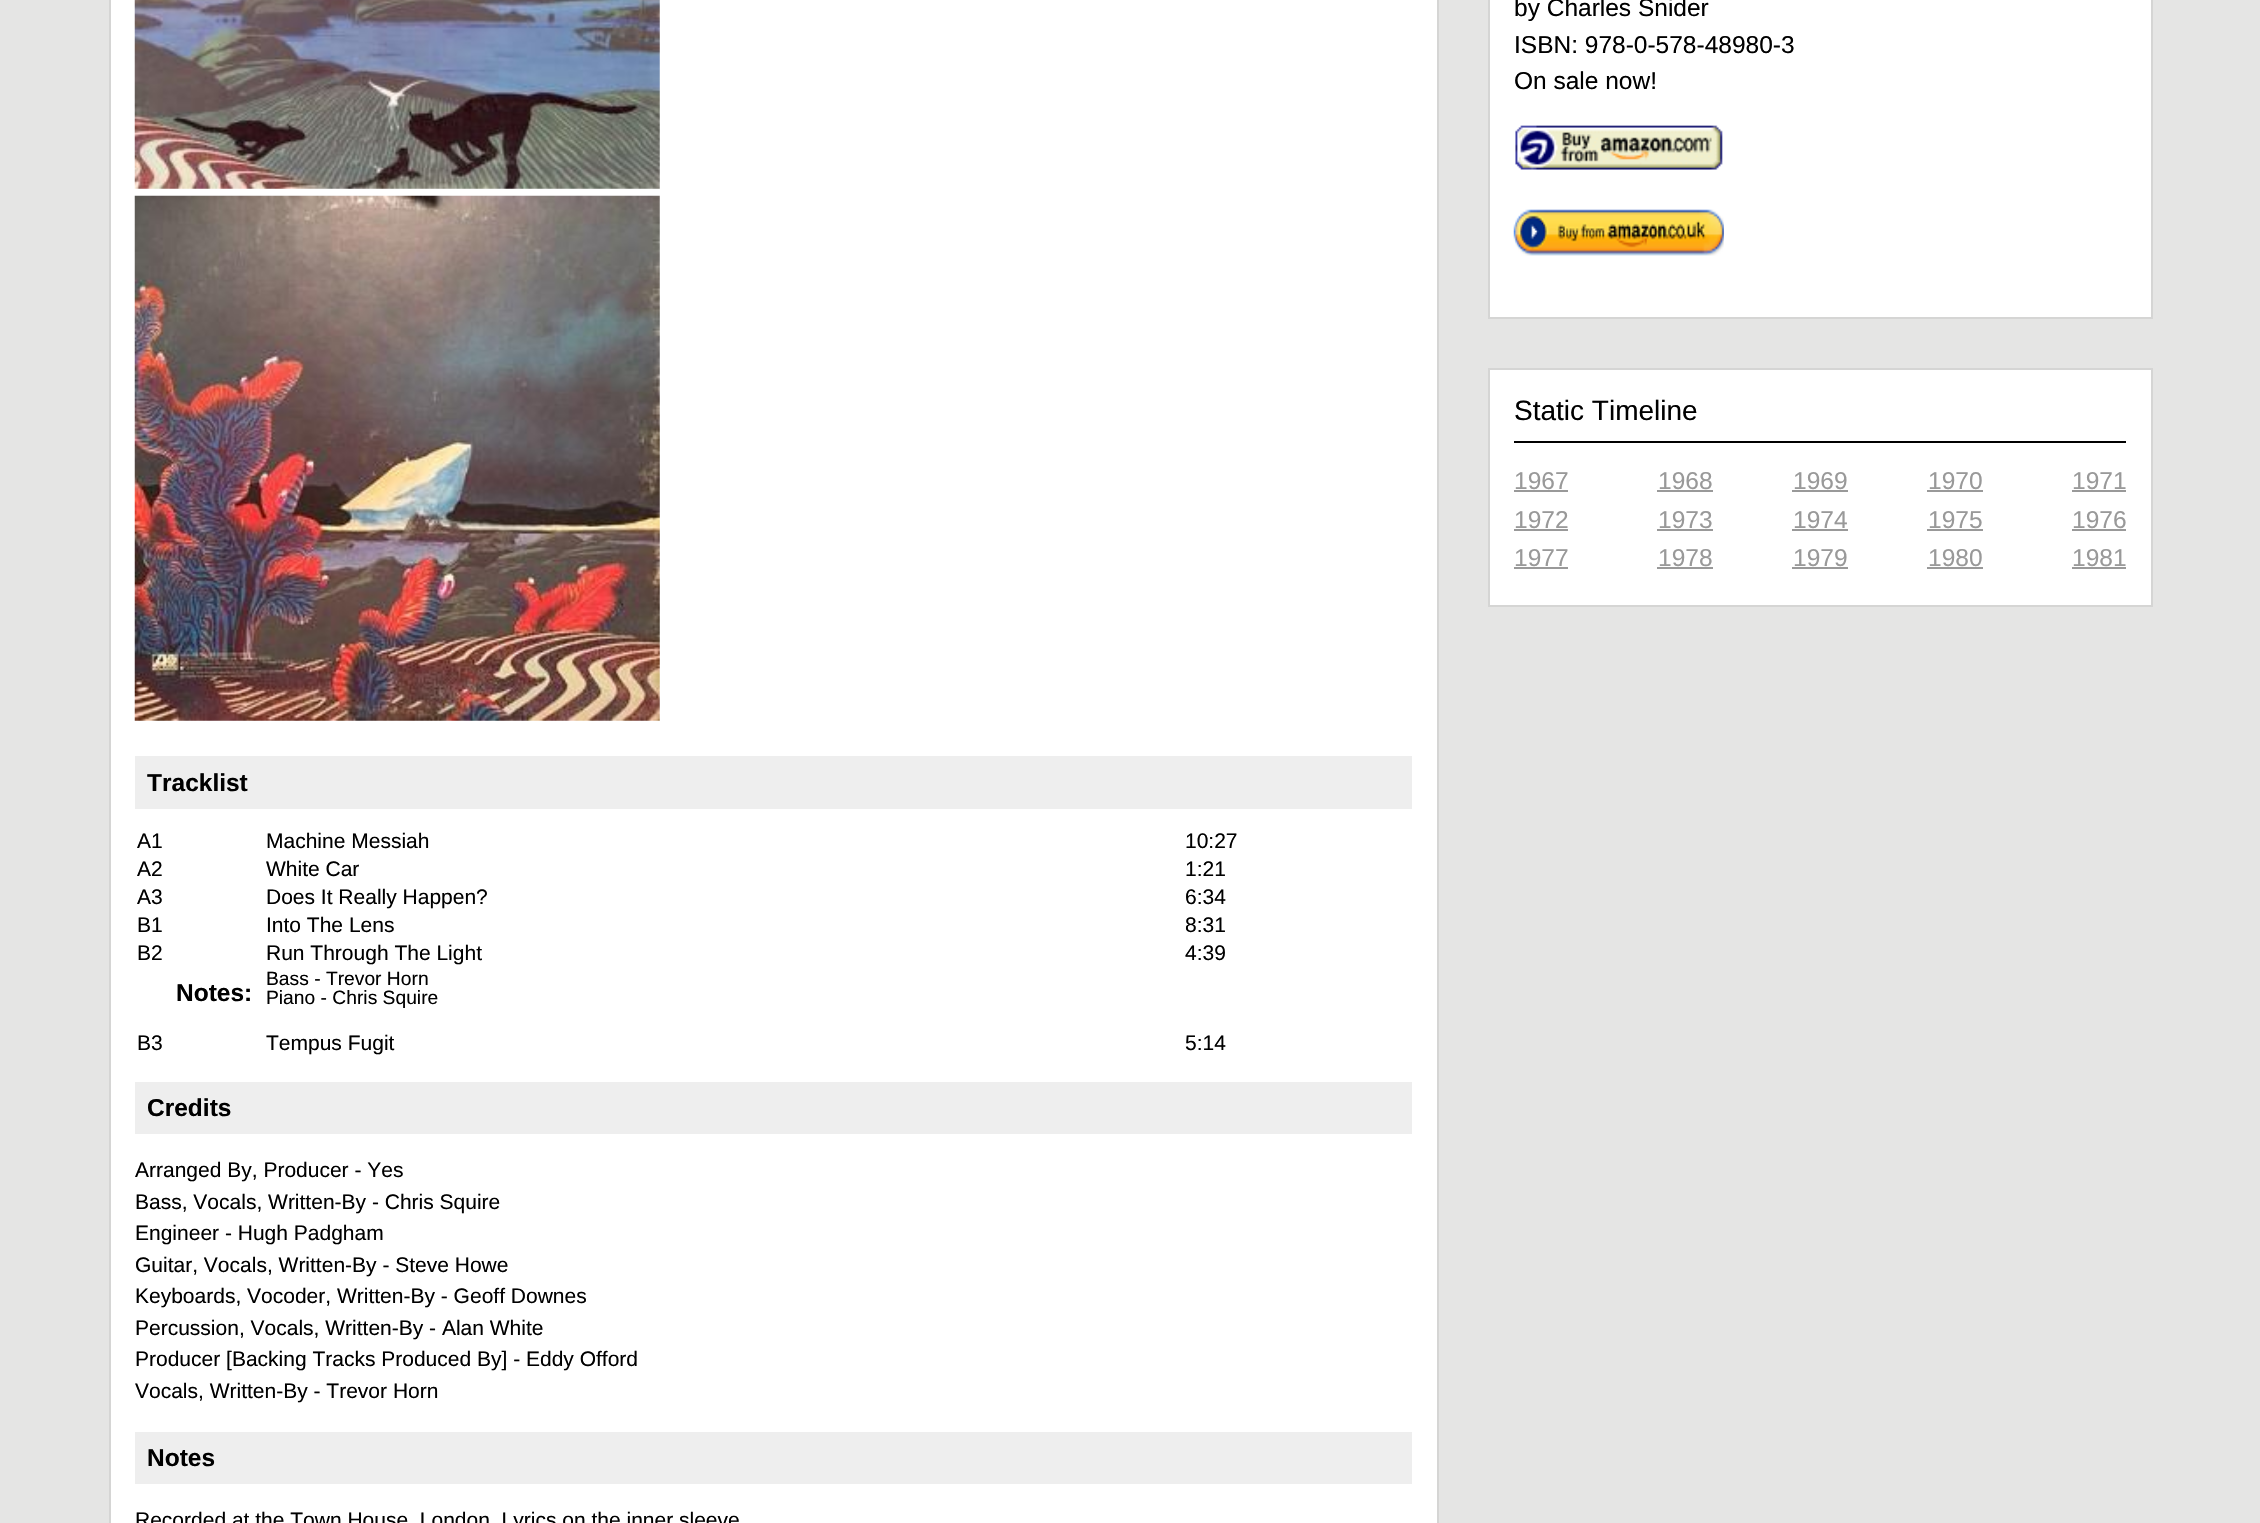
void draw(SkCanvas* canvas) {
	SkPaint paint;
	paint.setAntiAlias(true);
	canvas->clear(0xffe5e5e4);
	paint.setColor(0xffffffff);
	canvas->drawRect(SkRect::MakeXYWH(1489, -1, 663, 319), paint);
	paint.setStroke(true);
	paint.setStrokeWidth(2);
	paint.setColor(0xffd5d5d4);
	canvas->drawRect(SkRect::MakeXYWH(1489, -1, 663, 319), paint);
	SkFont f1(fontMgr->matchFamilyStyle("Liberation Sans", SkFontStyle::Normal()), 24.5);
	f1.setSubpixel(true);
	paint.setStroke(false);
	paint.setColor(0xff000000);
	canvas->drawString("by Charles Snider", 1514, 16, f1, paint);
	canvas->drawString("ISBN: 978-0-578-48980-3", 1514, 53, f1, paint);
	canvas->drawString("On sale now!", 1514, 89, f1, paint);
	canvas->drawImageRect(SkImages::DeferredFromEncodedData(SkData::MakeFromFileName("img1.png")), SkRect::MakeXYWH(1515, 125, 208, 45), SkSamplingOptions());
	canvas->drawImageRect(SkImages::DeferredFromEncodedData(SkData::MakeFromFileName("img2.png")), SkRect::MakeXYWH(1513, 209, 211, 47), SkSamplingOptions());
	paint.setColor(0xffffffff);
	canvas->drawRect(SkRect::MakeXYWH(1489, 369, 663, 237), paint);
	paint.setStroke(true);
	paint.setColor(0xffd5d5d4);
	canvas->drawRect(SkRect::MakeXYWH(1489, 369, 663, 237), paint);
	paint.setStroke(false);
	paint.setColor(0xff000000);
	canvas->drawRect(SkRect::MakeXYWH(1514, 441, 612, 2), paint);
	SkFont f2(fontMgr->matchFamilyStyle("Liberation Sans", SkFontStyle::Normal()), 28);
	f2.setSubpixel(true);
	canvas->drawString("Static Timeline", 1514, 420, f2, paint);
	paint.setColor(0xff999999);
	canvas->drawString("1967", 1514, 489, f1, paint);
	canvas->drawRect(SkRect::MakeXYWH(1514, 490, 54, 2), paint);
	canvas->drawString("1968", 1658, 489, f1, paint);
	canvas->drawRect(SkRect::MakeXYWH(1657, 490, 56, 2), paint);
	canvas->drawString("1969", 1793, 489, f1, paint);
	canvas->drawRect(SkRect::MakeXYWH(1792, 490, 56, 2), paint);
	canvas->drawString("1970", 1928, 489, f1, paint);
	canvas->drawRect(SkRect::MakeXYWH(1927, 490, 56, 2), paint);
	canvas->drawString("1971", 2072, 489, f1, paint);
	canvas->drawRect(SkRect::MakeXYWH(2072, 490, 54, 2), paint);
	canvas->drawString("1972", 1514, 528, f1, paint);
	canvas->drawRect(SkRect::MakeXYWH(1514, 529, 54, 2), paint);
	canvas->drawString("1973", 1658, 528, f1, paint);
	canvas->drawRect(SkRect::MakeXYWH(1657, 529, 56, 2), paint);
	canvas->drawString("1974", 1793, 528, f1, paint);
	canvas->drawRect(SkRect::MakeXYWH(1792, 529, 56, 2), paint);
	canvas->drawString("1975", 1928, 528, f1, paint);
	canvas->drawRect(SkRect::MakeXYWH(1927, 529, 56, 2), paint);
	canvas->drawString("1976", 2072, 528, f1, paint);
	canvas->drawRect(SkRect::MakeXYWH(2072, 529, 54, 2), paint);
	canvas->drawString("1977", 1514, 566, f1, paint);
	canvas->drawRect(SkRect::MakeXYWH(1514, 567, 54, 2), paint);
	canvas->drawString("1978", 1658, 566, f1, paint);
	canvas->drawRect(SkRect::MakeXYWH(1657, 567, 56, 2), paint);
	canvas->drawString("1979", 1793, 566, f1, paint);
	canvas->drawRect(SkRect::MakeXYWH(1792, 567, 56, 2), paint);
	canvas->drawString("1980", 1928, 566, f1, paint);
	canvas->drawRect(SkRect::MakeXYWH(1927, 567, 56, 2), paint);
	canvas->drawString("1981", 2072, 566, f1, paint);
	canvas->drawRect(SkRect::MakeXYWH(2072, 567, 54, 2), paint);
	paint.setColor(0xffffffff);
	canvas->drawRect(SkRect::MakeXYWH(110, -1, 1328, 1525), paint);
	paint.setStroke(true);
	paint.setColor(0xffd5d5d4);
	canvas->drawRect(SkRect::MakeXYWH(110, -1, 1328, 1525), paint);
	canvas->drawImageRect(SkImages::DeferredFromEncodedData(SkData::MakeFromFileName("img3.png")), SkRect::MakeXYWH(134, 0, 526, 189), SkSamplingOptions());
	canvas->drawImageRect(SkImages::DeferredFromEncodedData(SkData::MakeFromFileName("img4.png")), SkRect::MakeXYWH(134, 195, 526, 526), SkSamplingOptions());
	paint.setStroke(false);
	paint.setColor(0xffeeeeee);
	canvas->drawRect(SkRect::MakeXYWH(135, 756, 1277, 53), paint);
	SkFont f3(fontMgr->matchFamilyStyle("Liberation Sans", SkFontStyle::Bold()), 24.5);
	f3.setSubpixel(true);
	paint.setColor(0xff000000);
	canvas->drawString("Tracklist", 147, 791, f3, paint);
	SkFont f4(fontMgr->matchFamilyStyle("Liberation Sans", SkFontStyle::Normal()), 21);
	f4.setSubpixel(true);
	canvas->drawString("A1", 137, 848, f4, paint);
	canvas->drawString("Machine Messiah", 266, 848, f4, paint);
	canvas->drawString("10:27", 1185, 848, f4, paint);
	canvas->drawString("A2", 137, 876, f4, paint);
	canvas->drawString("White Car", 266, 876, f4, paint);
	canvas->drawString("1:21", 1185, 876, f4, paint);
	canvas->drawString("A3", 137, 904, f4, paint);
	canvas->drawString("Does It Really Happen?", 266, 904, f4, paint);
	canvas->drawString("6:34", 1185, 904, f4, paint);
	canvas->drawString("B1", 137, 932, f4, paint);
	canvas->drawString("Into The Lens", 266, 932, f4, paint);
	canvas->drawString("8:31", 1185, 932, f4, paint);
	canvas->drawString("B2", 137, 960, f4, paint);
	canvas->drawString("Run Through The Light", 266, 960, f4, paint);
	canvas->drawString("4:39", 1185, 960, f4, paint);
	canvas->drawString("Notes:", 176, 1001, f3, paint);
	SkFont f5(fontMgr->matchFamilyStyle("Liberation Sans", SkFontStyle::Normal()), 19.25);
	f5.setSubpixel(true);
	canvas->drawString("Bass - Trevor Horn", 266, 985, f5, paint);
	canvas->drawString("Piano - Chris Squire", 266, 1004, f5, paint);
	canvas->drawString("B3", 137, 1050, f4, paint);
	canvas->drawString("Tempus Fugit", 266, 1050, f4, paint);
	canvas->drawString("5:14", 1185, 1050, f4, paint);
	paint.setColor(0xffeeeeee);
	canvas->drawRect(SkRect::MakeXYWH(135, 1082, 1277, 52), paint);
	paint.setColor(0xff000000);
	canvas->drawString("Credits", 147, 1116, f3, paint);
	canvas->drawString("Arranged By, Producer - Yes", 135, 1177, f4, paint);
	canvas->drawString("Bass, Vocals, Written-By - Chris Squire", 135, 1209, f4, paint);
	canvas->drawString("Engineer - Hugh Padgham", 135, 1240, f4, paint);
	canvas->drawString("Guitar, Vocals, Written-By - Steve Howe", 135, 1272, f4, paint);
	canvas->drawString("Keyboards, Vocoder, Written-By - Geoff Downes", 135, 1303, f4, paint);
	canvas->drawString("Percussion, Vocals, Written-By - Alan White", 135, 1335, f4, paint);
	canvas->drawString("Producer [Backing Tracks Produced By] - Eddy Offord", 135, 1366, f4, paint);
	canvas->drawString("Vocals, Written-By - Trevor Horn", 135, 1398, f4, paint);
	paint.setColor(0xffeeeeee);
	canvas->drawRect(SkRect::MakeXYWH(135, 1432, 1277, 52), paint);
	paint.setColor(0xff000000);
	canvas->drawString("Notes", 147, 1466, f3, paint);
	canvas->drawString("Recorded at the Town House, London. Lyrics on the inner sleeve", 135, 1527, f4, paint);
}
